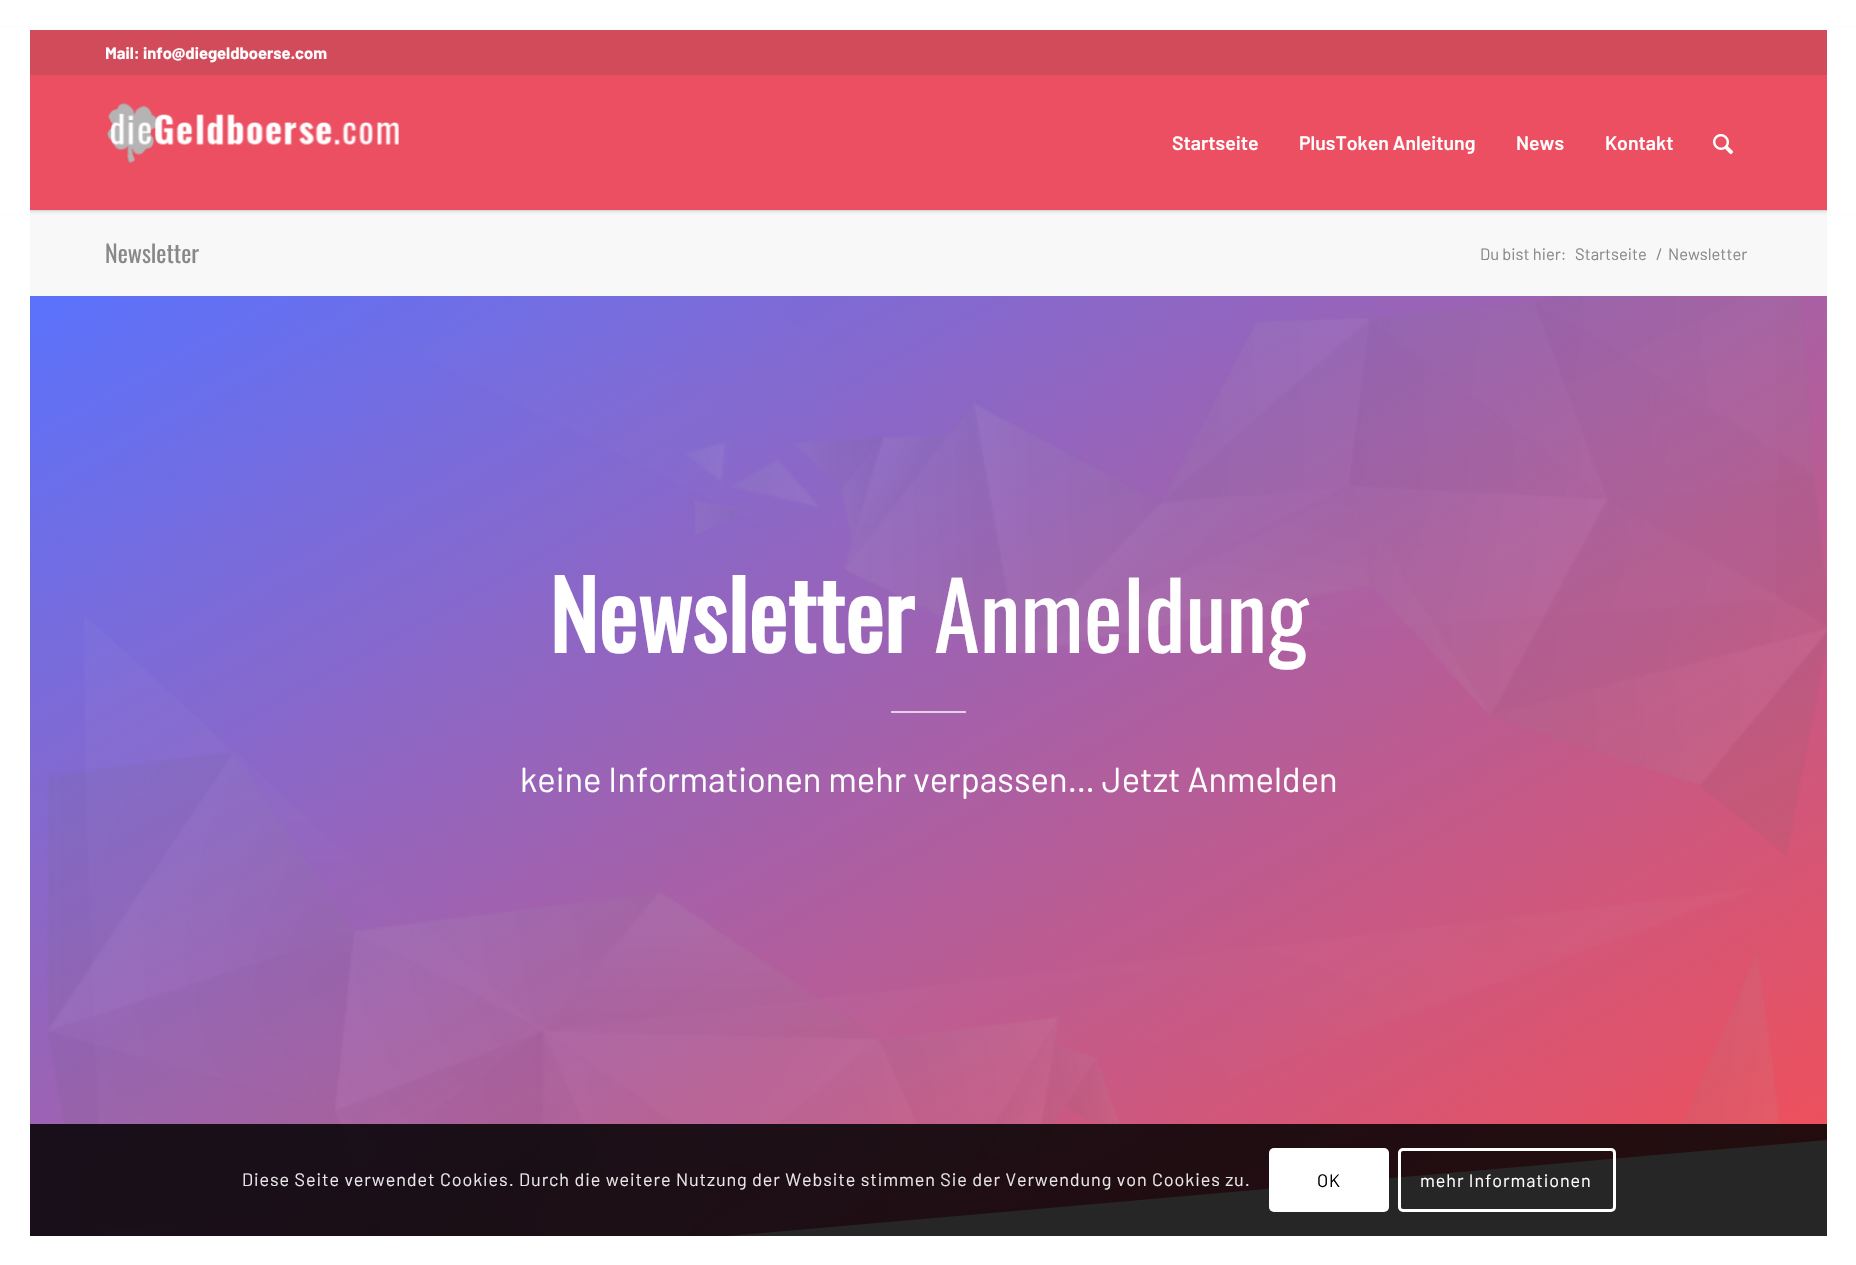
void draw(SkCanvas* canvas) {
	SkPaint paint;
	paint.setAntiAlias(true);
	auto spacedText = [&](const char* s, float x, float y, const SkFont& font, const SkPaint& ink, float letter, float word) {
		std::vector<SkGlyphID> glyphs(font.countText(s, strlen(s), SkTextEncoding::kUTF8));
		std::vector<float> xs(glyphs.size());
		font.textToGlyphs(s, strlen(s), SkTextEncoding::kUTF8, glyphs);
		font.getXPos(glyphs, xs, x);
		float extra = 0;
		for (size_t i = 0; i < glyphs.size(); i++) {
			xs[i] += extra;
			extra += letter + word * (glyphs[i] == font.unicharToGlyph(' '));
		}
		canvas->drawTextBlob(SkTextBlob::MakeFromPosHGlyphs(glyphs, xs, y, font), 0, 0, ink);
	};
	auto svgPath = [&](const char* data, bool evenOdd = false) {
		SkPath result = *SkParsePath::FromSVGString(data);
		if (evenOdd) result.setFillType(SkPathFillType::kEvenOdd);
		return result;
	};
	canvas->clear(0xffffffff);
	paint.setColor(0xfff8f8f8);
	canvas->drawRect(SkRect::MakeXYWH(30, 211, 1797, 85), paint);
	paint.setColor(0xffebebeb);
	canvas->drawRect(SkRect::MakeXYWH(30, 210, 1797, 1), paint);
	paint.setColor(0x1a000000);
	paint.setMaskFilter(SkMaskFilter::MakeBlur(kNormal_SkBlurStyle, 1.5));
	canvas->drawRect(SkRect::MakeXYWH(-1, 29, 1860, 183), paint);
	paint.setMaskFilter(nullptr);
	paint.setColor(0xffffffff);
	canvas->drawRect(SkRect::MakeXYWH(0, 27, 30, 187), paint);
	canvas->drawRect(SkRect::MakeXYWH(30, 27, 1797, 3), paint);
	canvas->drawRect(SkRect::MakeXYWH(1827, 27, 29, 187), paint);
	paint.setColor(0xffd14b5b);
	canvas->drawRect(SkRect::MakeXYWH(30, 30, 1797, 45), paint);
	SkFont f1(fontMgr->matchFamilyStyle("Barlow", SkFontStyle::Bold()), 16.5);
	f1.setSubpixel(true);
	paint.setColor(0xffffffff);
	canvas->drawString("Mail: info@diegeldboerse.com", 105, 59, f1, paint);
	paint.setColor(0xffeb4f61);
	canvas->drawRect(SkRect::MakeXYWH(30, 75, 1797, 135), paint);
	canvas->drawImageRect(SkImages::DeferredFromEncodedData(SkData::MakeFromFileName("img1.png")), SkRect::MakeXYWH(106, 103, 293, 61), SkSamplingOptions());
	SkFont f2(fontMgr->matchFamilyStyle("Barlow", SkFontStyle(600, SkFontStyle::kNormal_Width, SkFontStyle::kUpright_Slant)), 19.5);
	f2.setSubpixel(true);
	paint.setColor(0xffffffff);
	canvas->drawString("Startseite", 1172, 150, f2, paint);
	canvas->drawString("PlusToken Anleitung", 1299, 150, f2, paint);
	canvas->drawString("News", 1516, 150, f2, paint);
	canvas->drawString("Kontakt", 1605, 150, f2, paint);
	canvas->drawImageRect(SkImages::DeferredFromEncodedData(SkData::MakeFromFileName("img2.png")), SkRect::MakeXYWH(1713, 134, 21, 21), SkSamplingOptions());
	SkFont f3(fontMgr->matchFamilyStyle("Oswald", SkFontStyle::Normal()), 24);
	f3.setSubpixel(true);
	paint.setColor(0xff8a878a);
	canvas->drawString("Newsletter", 105, 263, f3, paint);
	SkFont f4(fontMgr->matchFamilyStyle("Barlow", SkFontStyle::Normal()), 16.5);
	f4.setSubpixel(true);
	canvas->drawString("Du bist hier:", 1480, 260, f4, paint);
	canvas->drawString("Startseite", 1575, 260, f4, paint);
	canvas->drawString("/", 1656, 260, f4, paint);
	canvas->drawString("Newsletter", 1668, 260, f4, paint);
	canvas->drawImageRect(SkImages::DeferredFromEncodedData(SkData::MakeFromFileName("img3.png")), SkRect::MakeXYWH(30, 296, 1797, 940), SkSamplingOptions());
	SkFont f5(fontMgr->matchFamilyStyle("Oswald", SkFontStyle::Bold()), 93);
	f5.setSubpixel(true);
	paint.setColor(0xffffffff);
	canvas->drawString("Newsletter", 549, 653, f5, paint);
	SkFont f6(fontMgr->matchFamilyStyle("Oswald", SkFontStyle::Normal()), 93);
	f6.setSubpixel(true);
	canvas->drawString("Anmeldung", 934, 653, f6, paint);
	paint.setColor(0xb3ffffff);
	canvas->drawRect(SkRect::MakeXYWH(891, 711, 75, 2), paint);
	SkFont f7(fontMgr->matchFamilyStyle("Barlow", SkFontStyle::Normal()), 34.5);
	f7.setSubpixel(true);
	paint.setColor(0xffffffff);
	canvas->drawString("keine Informationen mehr verpassen… Jetzt Anmelden", 520, 792, f7, paint);
	canvas->drawPath(svgPath("M30 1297L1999 1125L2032 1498L63 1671Z"), paint);
	paint.setColor(0xd9000000);
	canvas->drawRect(SkRect::MakeXYWH(30, 1124, 1797, 112), paint);
	SkFont f8(fontMgr->matchFamilyStyle("Barlow", SkFontStyle::Normal()), 18);
	f8.setSubpixel(true);
	paint.setColor(0xffe8e7e8);
	spacedText("Diese Seite verwendet Cookies. Durch die weitere Nutzung der Website stimmen Sie der Verwendung von Cookies zu.", 242, 1186, f8, paint, 0.9, 0);
	paint.setColor(0xffffffff);
	canvas->drawRoundRect(SkRect::MakeXYWH(1269, 1148, 120, 64), 5, 5, paint);
	paint.setColor(0xff000000);
	spacedText("OK", 1317, 1187, f8, paint, 0.9, 0);
	paint.setStroke(true);
	paint.setStrokeWidth(3);
	paint.setColor(0xffffffff);
	canvas->drawRoundRect(SkRect::MakeXYWH(1399.5, 1149.5, 215, 61), 3.5, 3.5, paint);
	paint.setStroke(false);
	spacedText("mehr Informationen", 1420, 1187, f8, paint, 0.9, 0);
}
